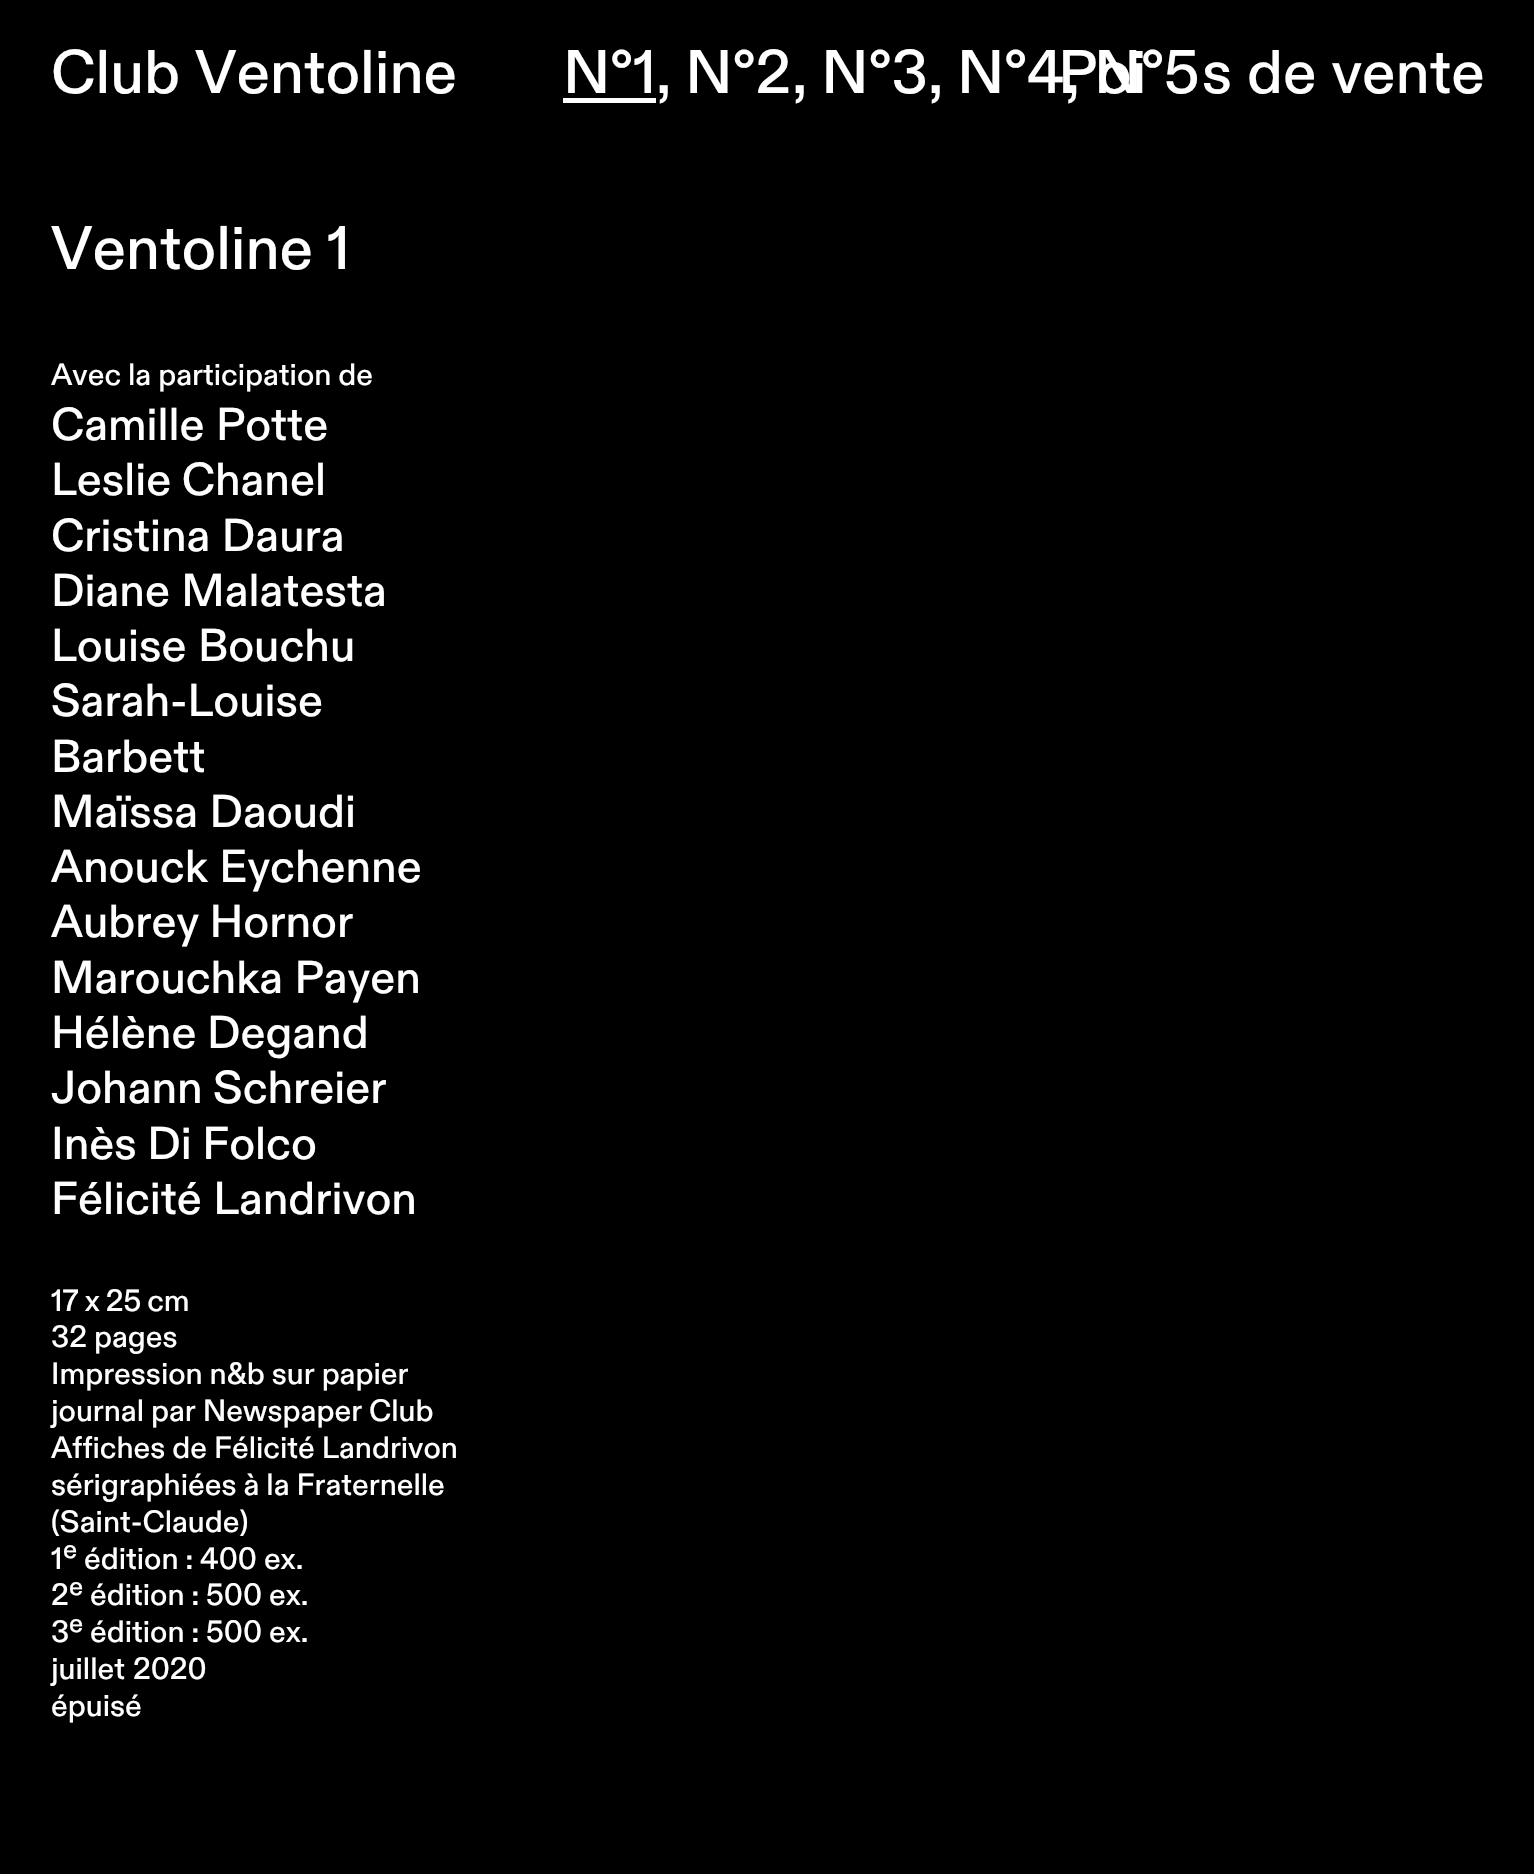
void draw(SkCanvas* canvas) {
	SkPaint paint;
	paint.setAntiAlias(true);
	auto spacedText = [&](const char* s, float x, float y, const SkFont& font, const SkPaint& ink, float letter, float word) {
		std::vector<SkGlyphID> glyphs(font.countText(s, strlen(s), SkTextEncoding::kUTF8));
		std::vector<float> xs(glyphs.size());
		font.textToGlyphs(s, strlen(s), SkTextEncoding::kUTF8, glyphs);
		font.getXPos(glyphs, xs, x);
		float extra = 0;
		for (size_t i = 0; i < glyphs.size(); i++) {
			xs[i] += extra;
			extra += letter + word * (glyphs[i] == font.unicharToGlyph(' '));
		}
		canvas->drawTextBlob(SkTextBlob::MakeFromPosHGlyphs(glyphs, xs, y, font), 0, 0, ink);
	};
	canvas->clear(0xff000000);
	SkFont f1(fontMgr->matchFamilyStyle("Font", SkFontStyle(500, SkFontStyle::kNormal_Width, SkFontStyle::kUpright_Slant)), 61.5);
	f1.setSubpixel(true);
	paint.setColor(0xffffffff);
	spacedText("Club Ventoline", 51, 93, f1, paint, 0, 1);
	canvas->drawString("N°4,", 957, 93, f1, paint);
	canvas->drawString("N°5", 1094, 93, f1, paint);
	spacedText("Poi", 1058, 93, f1, paint, 0, 1);
	spacedText("s de vente", 1202, 93, f1, paint, 0, 1);
	canvas->drawString("N°1", 563, 93, f1, paint);
	canvas->drawRect(SkRect::MakeXYWH(563, 98, 93, 5), paint);
	canvas->drawString(", N°2", 656, 93, f1, paint);
	canvas->drawString(", N°3,", 792, 93, f1, paint);
	canvas->drawString("Ventoline 1", 51, 269, f1, paint);
	SkFont f2(fontMgr->matchFamilyStyle("Font", SkFontStyle(500, SkFontStyle::kNormal_Width, SkFontStyle::kUpright_Slant)), 30.75);
	f2.setSubpixel(true);
	canvas->drawString("Avec la participation de", 51, 385, f2, paint);
	SkFont f3(fontMgr->matchFamilyStyle("Font", SkFontStyle(500, SkFontStyle::kNormal_Width, SkFontStyle::kUpright_Slant)), 46);
	f3.setSubpixel(true);
	spacedText("Camille Potte", 51, 440, f3, paint, 0, 1);
	canvas->drawString("Leslie Chanel", 51, 495, f3, paint);
	spacedText("Cristina Daura", 51, 551, f3, paint, 0, 1);
	spacedText("Diane Malatesta", 51, 606, f3, paint, 0, 1);
	spacedText("Louise Bouchu", 51, 661, f3, paint, 0, 1);
	canvas->drawString("Sarah-Louise", 51, 716, f3, paint);
	canvas->drawString("Barbett", 51, 772, f3, paint);
	spacedText("Maïssa Daoudi", 51, 827, f3, paint, 0, 1);
	spacedText("Anouck Eychenne", 51, 882, f3, paint, 0, 1);
	canvas->drawString("Aubrey Hornor", 51, 937, f3, paint);
	spacedText("Marouchka Payen", 51, 993, f3, paint, 0, 1);
	canvas->drawString("Hélène Degand", 51, 1048, f3, paint);
	canvas->drawString("Johann Schreier", 51, 1103, f3, paint);
	canvas->drawString("Inès Di Folco", 51, 1159, f3, paint);
	spacedText("Félicité Landrivon", 51, 1214, f3, paint, 0, 1);
	spacedText("17 x 25 cm", 51, 1311, f2, paint, 0, -1);
	canvas->drawString("32 pages", 51, 1347, f2, paint);
	canvas->drawString("Impression n&b sur papier", 51, 1384, f2, paint);
	canvas->drawString("journal par Newspaper Club", 51, 1421, f2, paint);
	canvas->drawString("Affiches de Félicité Landrivon", 51, 1458, f2, paint);
	canvas->drawString("sérigraphiées à la Fraternelle", 51, 1495, f2, paint);
	canvas->drawString("(Saint-Claude)", 51, 1532, f2, paint);
	canvas->drawString("1", 51, 1569, f2, paint);
	SkFont f4(fontMgr->matchFamilyStyle("Font", SkFontStyle(500, SkFontStyle::kNormal_Width, SkFontStyle::kUpright_Slant)), 26);
	f4.setSubpixel(true);
	canvas->drawString("e", 63, 1558, f4, paint);
	canvas->drawString("édition : 400 ex.", 84, 1569, f2, paint);
	canvas->drawString("2", 51, 1605, f2, paint);
	canvas->drawString("e", 69, 1595, f4, paint);
	canvas->drawString("édition : 500 ex.", 90, 1605, f2, paint);
	canvas->drawString("3", 51, 1642, f2, paint);
	canvas->drawString("e", 69, 1632, f4, paint);
	canvas->drawString("édition : 500 ex.", 90, 1642, f2, paint);
	spacedText("juillet 2020", 51, 1679, f2, paint, 0, 1);
	canvas->drawString("épuisé", 51, 1716, f2, paint);
}
